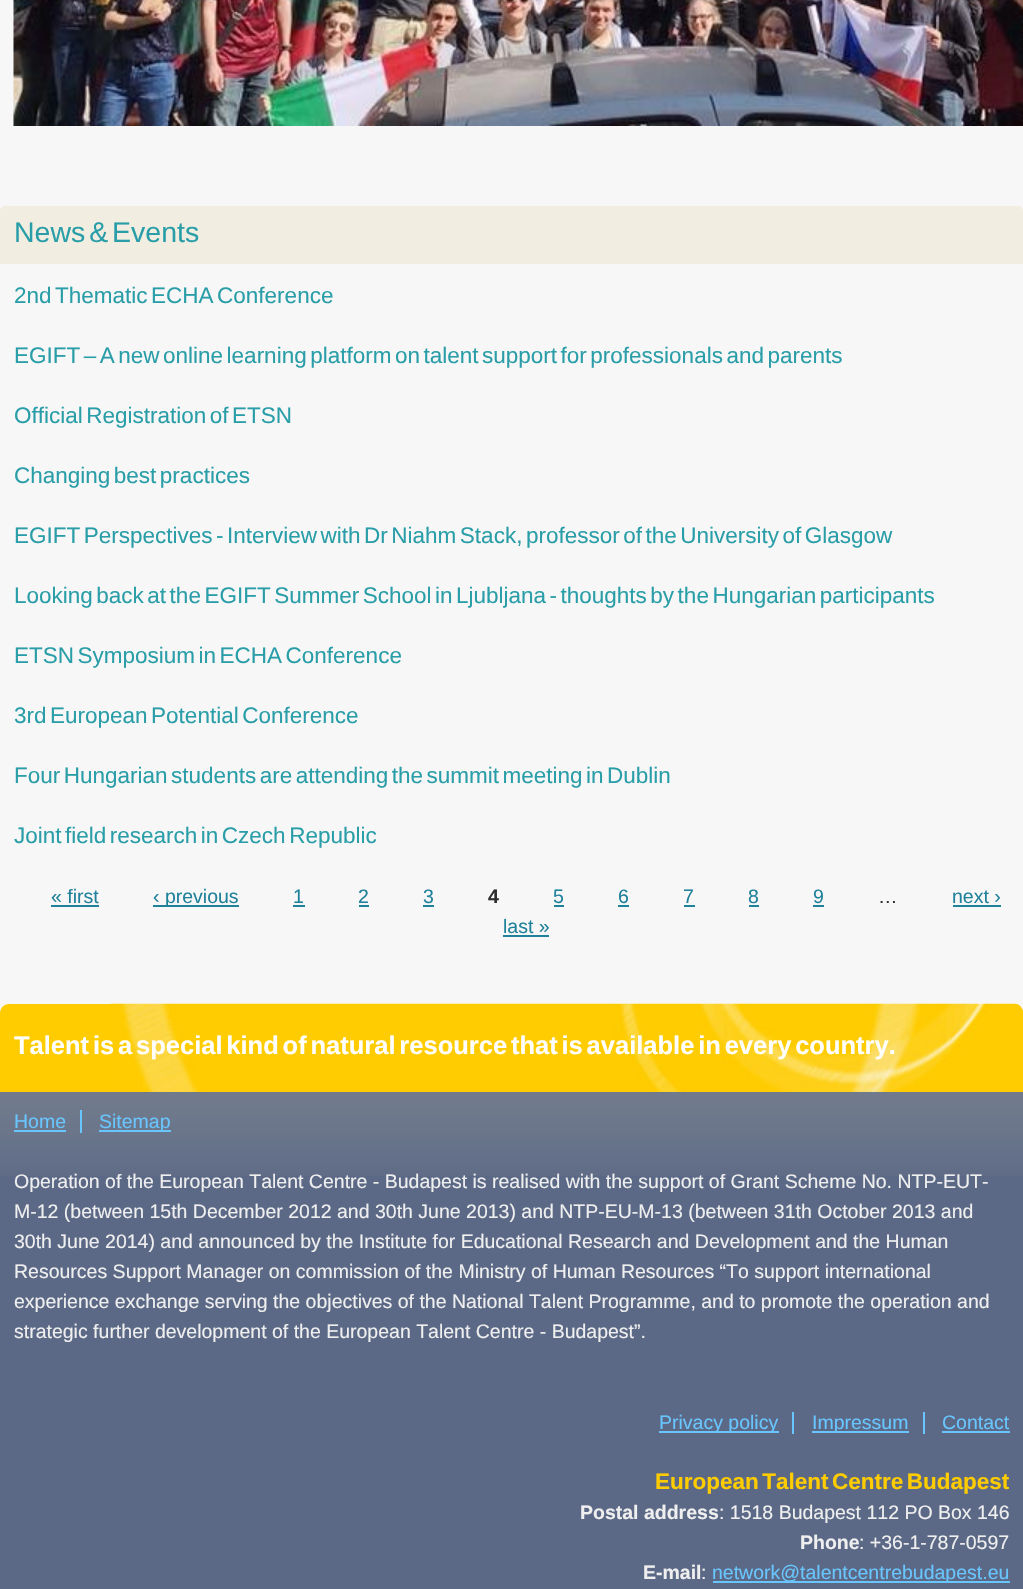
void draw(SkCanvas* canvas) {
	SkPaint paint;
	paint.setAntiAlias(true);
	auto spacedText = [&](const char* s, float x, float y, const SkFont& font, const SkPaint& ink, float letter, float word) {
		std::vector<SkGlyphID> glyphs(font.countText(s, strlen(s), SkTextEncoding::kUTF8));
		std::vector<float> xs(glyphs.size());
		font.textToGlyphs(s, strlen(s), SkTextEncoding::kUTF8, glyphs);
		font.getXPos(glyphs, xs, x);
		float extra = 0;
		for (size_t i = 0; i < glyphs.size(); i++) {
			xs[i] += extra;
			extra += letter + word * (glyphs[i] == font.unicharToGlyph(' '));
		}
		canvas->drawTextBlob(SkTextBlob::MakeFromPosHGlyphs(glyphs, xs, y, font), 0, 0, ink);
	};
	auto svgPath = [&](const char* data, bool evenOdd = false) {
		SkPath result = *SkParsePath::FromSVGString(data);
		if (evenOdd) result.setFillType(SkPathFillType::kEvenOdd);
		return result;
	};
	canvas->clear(0xfff7f7f7);
	canvas->drawImageRect(SkImages::DeferredFromEncodedData(SkData::MakeFromFileName("img1.png")), SkRect::MakeXYWH(13, 0, 1010, 126), SkSamplingOptions());
	paint.setColor(0xfff1eee1);
	canvas->drawPath(svgPath("M5 206H1018C1021 206 1023 208 1023 211V266H0V211C0 208 2 206 5 206Z"), paint);
	paint.setColor(0xfff7f7f7);
	canvas->drawRect(SkRect::MakeXYWH(0, 264, 1023, 2), paint);
	SkFont f1(fontMgr->matchFamilyStyle("Liberation Sans", SkFontStyle::Normal()), 28.5);
	f1.setSubpixel(true);
	paint.setColor(0xff2a9ea8);
	spacedText("News & Events", 14, 242, f1, paint, 0, -4);
	SkFont f2(fontMgr->matchFamilyStyle("Liberation Sans", SkFontStyle::Normal()), 22.5);
	f2.setSubpixel(true);
	spacedText("2nd Thematic ECHA Conference", 14, 303, f2, paint, 0, -2.75);
	spacedText("EGIFT – A new online learning platform on talent support for professionals and parents", 14, 363, f2, paint, 0, -2.75);
	spacedText("Official Registration of ETSN", 14, 423, f2, paint, 0, -2.75);
	spacedText("Changing best practices", 14, 483, f2, paint, 0, -2.75);
	spacedText("EGIFT Perspectives - Interview with Dr Niahm Stack, professor of the University of Glasgow", 14, 543, f2, paint, 0, -2.75);
	spacedText("Looking back at the EGIFT Summer School in Ljubljana - thoughts by the Hungarian participants", 14, 603, f2, paint, 0, -2.75);
	spacedText("ETSN Symposium in ECHA Conference", 14, 663, f2, paint, 0, -2.75);
	spacedText("3rd European Potential Conference", 14, 723, f2, paint, 0, -2.75);
	spacedText("Four Hungarian students are attending the summit meeting in Dublin", 14, 783, f2, paint, 0, -2.75);
	spacedText("Joint field research in Czech Republic", 14, 843, f2, paint, 0, -2.75);
	SkFont f3(fontMgr->matchFamilyStyle("Liberation Sans", SkFontStyle::Normal()), 19.5);
	f3.setSubpixel(true);
	paint.setColor(0xff20819b);
	canvas->drawString("« first", 51, 903, f3, paint);
	canvas->drawRect(SkRect::MakeXYWH(51, 905, 48, 2), paint);
	canvas->drawRect(SkRect::MakeXYWH(153, 905, 86, 2), paint);
	canvas->drawString("‹ previous", 153, 903, f3, paint);
	canvas->drawString("1", 293, 903, f3, paint);
	canvas->drawRect(SkRect::MakeXYWH(293, 905, 12, 2), paint);
	canvas->drawString("2", 358, 903, f3, paint);
	canvas->drawRect(SkRect::MakeXYWH(359, 905, 10, 2), paint);
	canvas->drawString("3", 423, 903, f3, paint);
	canvas->drawRect(SkRect::MakeXYWH(423, 905, 11, 2), paint);
	SkFont f4(fontMgr->matchFamilyStyle("Liberation Sans", SkFontStyle::Bold()), 19.5);
	f4.setSubpixel(true);
	paint.setColor(0xff2d2d2d);
	canvas->drawString("4", 488, 903, f4, paint);
	paint.setColor(0xff20819b);
	canvas->drawString("5", 553, 903, f3, paint);
	canvas->drawRect(SkRect::MakeXYWH(554, 905, 10, 2), paint);
	canvas->drawString("6", 618, 903, f3, paint);
	canvas->drawRect(SkRect::MakeXYWH(618, 905, 11, 2), paint);
	canvas->drawString("7", 683, 903, f3, paint);
	canvas->drawRect(SkRect::MakeXYWH(684, 905, 11, 2), paint);
	canvas->drawString("8", 748, 903, f3, paint);
	canvas->drawRect(SkRect::MakeXYWH(749, 905, 10, 2), paint);
	canvas->drawString("9", 813, 903, f3, paint);
	canvas->drawRect(SkRect::MakeXYWH(813, 905, 11, 2), paint);
	paint.setColor(0xff2d2d2d);
	canvas->drawString("…", 878, 903, f3, paint);
	paint.setColor(0xff20819b);
	canvas->drawString("next ›", 952, 903, f3, paint);
	canvas->drawRect(SkRect::MakeXYWH(953, 905, 48, 2), paint);
	canvas->drawString("last »", 503, 933, f3, paint);
	canvas->drawRect(SkRect::MakeXYWH(503, 935, 46, 2), paint);
	paint.setColor(0xffffcc00);
	canvas->drawPath(svgPath("M9 1004H1014C1019 1004 1023 1008 1023 1013V1092H0V1013C0 1008 4 1004 9 1004Z"), paint);
	canvas->drawImageRect(SkImages::DeferredFromEncodedData(SkData::MakeFromFileName("img2.png")), SkRect::MakeXYWH(111, 1003, 912, 89), SkSamplingOptions());
	SkFont f5(fontMgr->matchFamilyStyle("Liberation Sans", SkFontStyle::Bold()), 25.5);
	f5.setSubpixel(true);
	paint.setColor(0xffffffff);
	spacedText("Talent is a special kind of natural resource that is available in every country.", 14, 1054, f5, paint, 0, -3.25);
	paint.setColor(0xff5b6986);
	canvas->drawRect(SkRect::MakeXYWH(0, 1176, 1023, 413), paint);
	canvas->drawImageRect(SkImages::DeferredFromEncodedData(SkData::MakeFromFileName("img3.png")), SkRect::MakeXYWH(0, 1092, 1023, 84), SkSamplingOptions());
	paint.setColor(0xff69c5fd);
	canvas->drawString("Home", 14, 1128, f3, paint);
	canvas->drawRect(SkRect::MakeXYWH(80, 1110, 2, 23), paint);
	canvas->drawRect(SkRect::MakeXYWH(14, 1130, 52, 2), paint);
	canvas->drawRect(SkRect::MakeXYWH(99, 1130, 72, 2), paint);
	canvas->drawString("Sitemap", 99, 1128, f3, paint);
	paint.setColor(0xffefefef);
	canvas->drawString("Operation of the European Talent Centre - Budapest is realised with the support of Grant Scheme No. NTP-EUT-", 14, 1188, f3, paint);
	canvas->drawString("M-12 (between 15th December 2012 and 30th June 2013) and NTP-EU-M-13 (between 31th October 2013 and", 14, 1218, f3, paint);
	canvas->drawString("30th June 2014) and announced by the Institute for Educational Research and Development and the Human", 14, 1248, f3, paint);
	canvas->drawString("Resources Support Manager on commission of the Ministry of Human Resources “To support international", 14, 1278, f3, paint);
	canvas->drawString("experience exchange serving the objectives of the National Talent Programme, and to promote the operation and", 14, 1308, f3, paint);
	canvas->drawString("strategic further development of the European Talent Centre - Budapest”.", 14, 1338, f3, paint);
	paint.setColor(0xff69c5fd);
	canvas->drawRect(SkRect::MakeXYWH(659, 1431, 120, 2), paint);
	canvas->drawString("Privacy policy", 659, 1429, f3, paint);
	canvas->drawRect(SkRect::MakeXYWH(792, 1412, 2, 22), paint);
	canvas->drawRect(SkRect::MakeXYWH(812, 1431, 97, 2), paint);
	canvas->drawString("Impressum", 812, 1429, f3, paint);
	canvas->drawRect(SkRect::MakeXYWH(923, 1412, 2, 22), paint);
	canvas->drawString("Contact", 942, 1429, f3, paint);
	canvas->drawRect(SkRect::MakeXYWH(942, 1431, 68, 2), paint);
	SkFont f6(fontMgr->matchFamilyStyle("Liberation Sans", SkFontStyle::Bold()), 22.5);
	f6.setSubpixel(true);
	paint.setColor(0xffffcc00);
	spacedText("European Talent Centre Budapest", 655, 1489, f6, paint, 0, -2.75);
	paint.setColor(0xffefefef);
	canvas->drawString("Postal address", 580, 1519, f4, paint);
	canvas->drawString(": 1518 Budapest 112 PO Box 146", 719, 1519, f3, paint);
	canvas->drawString("Phone", 800, 1549, f4, paint);
	canvas->drawString(": +36-1-787-0597", 859, 1549, f3, paint);
	canvas->drawString("E-mail", 643, 1579, f4, paint);
	canvas->drawString(":", 701, 1579, f3, paint);
	paint.setColor(0xff69c5fd);
	canvas->drawRect(SkRect::MakeXYWH(713, 1581, 297, 2), paint);
	canvas->drawString("network@talentcentrebudapest.eu", 712, 1579, f3, paint);
}
